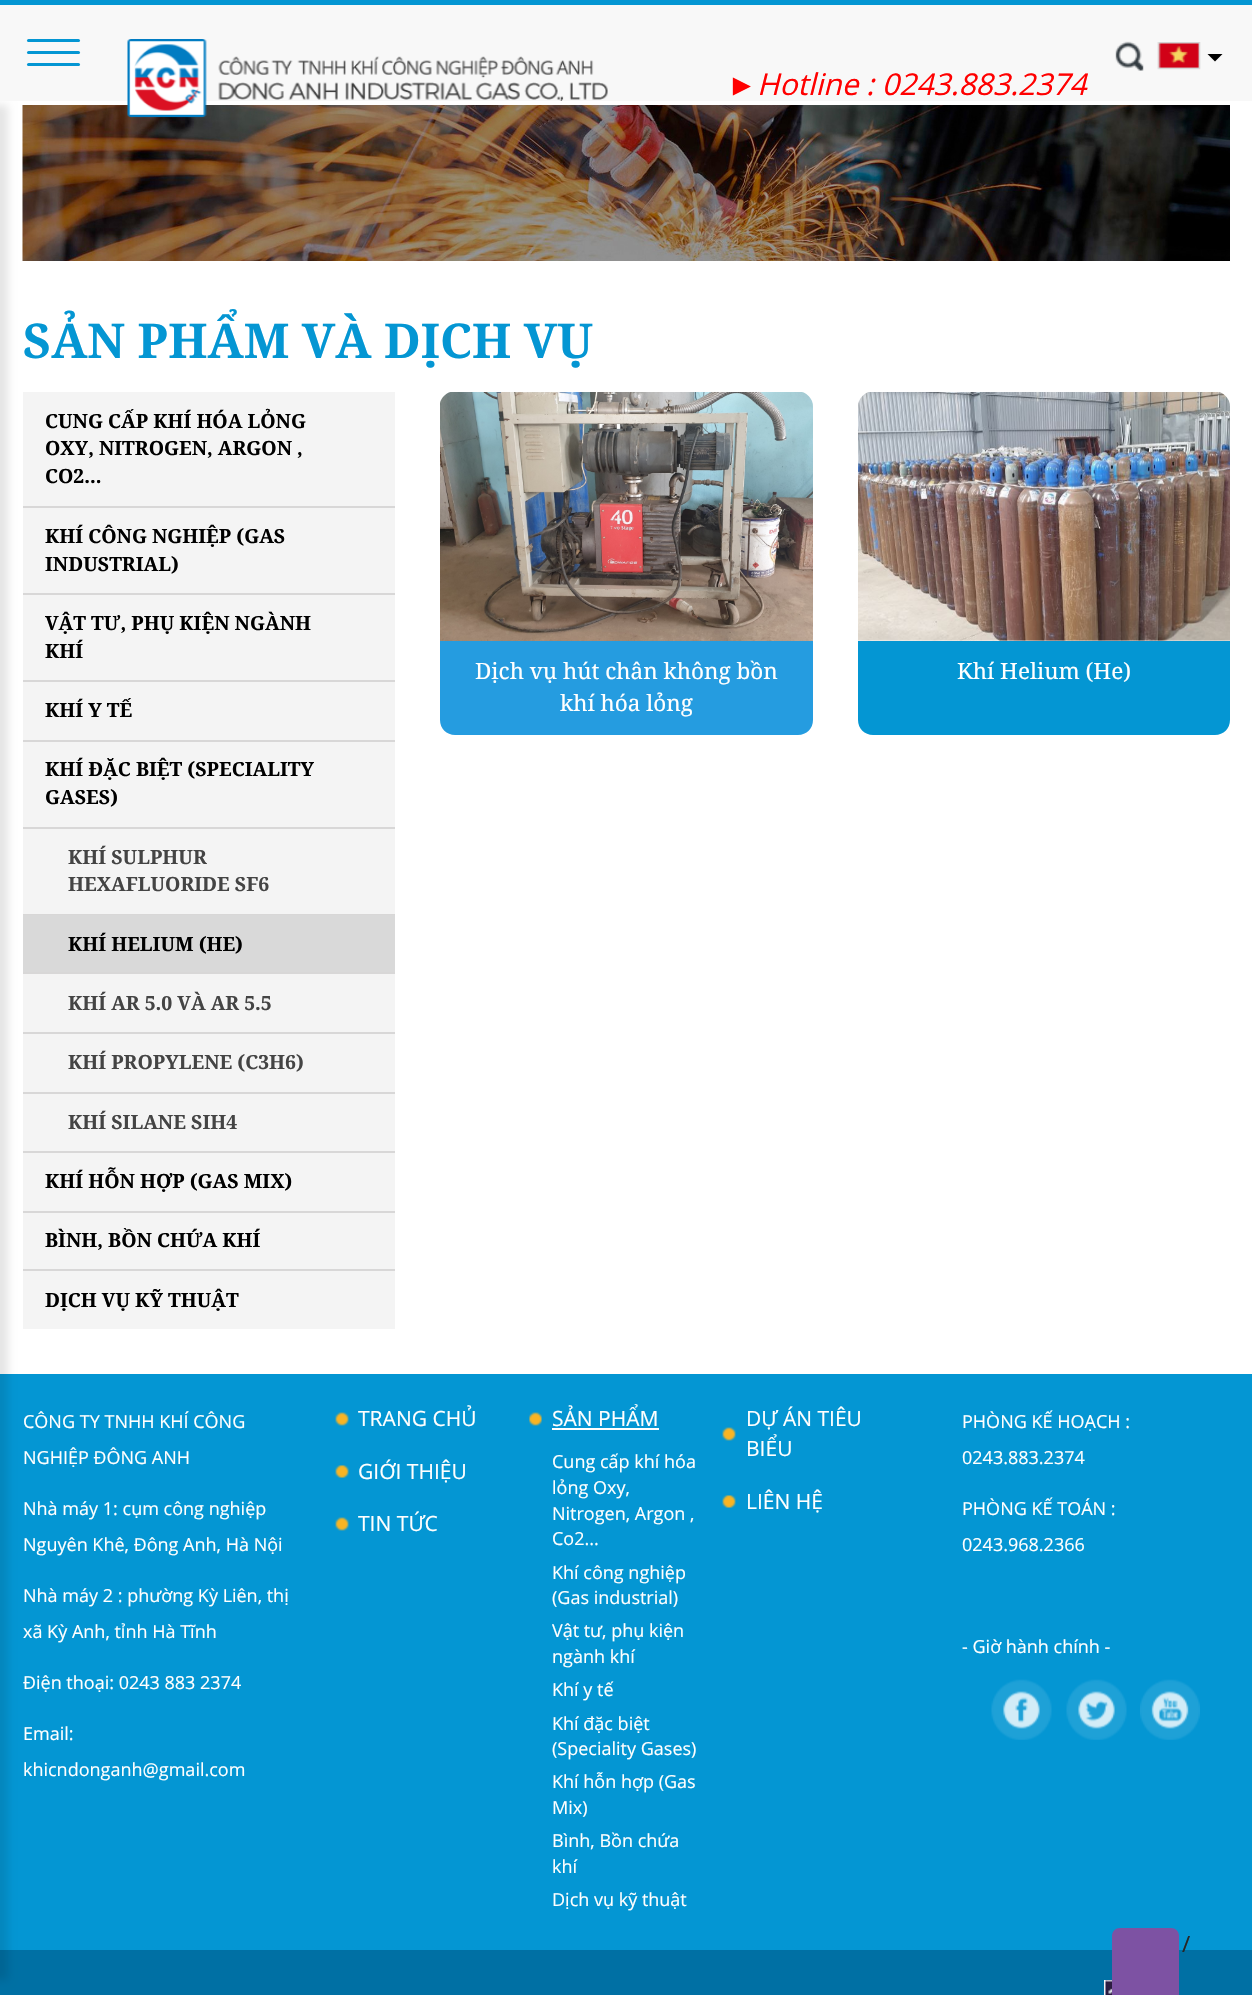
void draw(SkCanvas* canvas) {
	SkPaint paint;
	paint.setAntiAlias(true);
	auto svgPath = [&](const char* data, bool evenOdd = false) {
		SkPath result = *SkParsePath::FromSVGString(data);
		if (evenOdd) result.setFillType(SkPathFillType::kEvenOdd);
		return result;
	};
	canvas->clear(0xffffffff);
	paint.setColor(0xff0070a4);
	canvas->drawRect(SkRect::MakeXYWH(0, 1950, 1252, 45), paint);
	paint.setColor(0xff0496d3);
	canvas->drawRect(SkRect::MakeXYWH(0, 1374, 1252, 576), paint);
	paint.setColor(0x1a000000);
	paint.setMaskFilter(SkMaskFilter::MakeBlur(kNormal_SkBlurStyle, 4));
	canvas->drawRect(SkRect::MakeXYWH(-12, 105, 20, 1875), paint);
	paint.setMaskFilter(nullptr);
	paint.setColor(0xfff8f8f8);
	canvas->drawRect(SkRect::MakeXYWH(0, 5, 105, 96), paint);
	paint.setColor(0xff0496d3);
	canvas->drawRoundRect(SkRect::MakeXYWH(27, 51, 53, 3), 1.5, 1.5, paint);
	canvas->drawRoundRect(SkRect::MakeXYWH(27, 39, 53, 3), 1.5, 1.5, paint);
	canvas->drawRoundRect(SkRect::MakeXYWH(27, 63, 53, 3), 1.5, 1.5, paint);
	paint.setColor(0xfff8f8f8);
	canvas->drawRect(SkRect::MakeXYWH(105, 5, 1147, 96), paint);
	paint.setColor(0xff0496d3);
	canvas->drawRect(SkRect::MakeXYWH(0, 0, 1252, 5), paint);
	canvas->drawImageRect(SkImages::DeferredFromEncodedData(SkData::MakeFromFileName("img4.png")), SkRect::MakeXYWH(22, 105, 1208, 156), SkSamplingOptions());
	canvas->drawImageRect(SkImages::DeferredFromEncodedData(SkData::MakeFromFileName("img1.png")), SkRect::MakeXYWH(127, 39, 481, 79), SkSamplingOptions());
	canvas->drawImageRect(SkImages::DeferredFromEncodedData(SkData::MakeFromFileName("img2.png")), SkRect::MakeXYWH(1115, 41, 29, 30), SkSamplingOptions());
	canvas->drawImageRect(SkImages::DeferredFromEncodedData(SkData::MakeFromFileName("img3.png")), SkRect::MakeXYWH(1157, 42, 44, 28), SkSamplingOptions());
	paint.setColor(0xff000000);
	canvas->drawPath(svgPath("M1207.5 54H1222.5L1215 61.5Z"), paint);
	SkFont f1(fontMgr->matchFamilyStyle("Liberation Sans", SkFontStyle::Italic()), 30);
	f1.setSubpixel(true);
	paint.setColor(0xffff0000);
	canvas->drawString("►", 727, 95, f1, paint);
	SkFont f2(fontMgr->matchFamilyStyle("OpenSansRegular", SkFontStyle::Italic()), 30);
	f2.setSubpixel(true);
	canvas->drawString("Hotline : 0243.883.2374", 757, 95, f2, paint);
	SkFont f3(fontMgr->matchFamilyStyle("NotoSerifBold", SkFontStyle::Bold()), 48);
	f3.setSubpixel(true);
	paint.setColor(0xff0496d3);
	canvas->drawString("SẢN PHẨM VÀ DỊCH VỤ", 23, 358, f3, paint);
	paint.setColor(0xfff4f4f4);
	canvas->drawRect(SkRect::MakeXYWH(23, 392, 372, 937), paint);
	paint.setColor(0xffd8d7d7);
	canvas->drawRect(SkRect::MakeXYWH(23, 506, 372, 2), paint);
	SkFont f4(fontMgr->matchFamilyStyle("NotoSerifBold", SkFontStyle::Bold()), 19.5);
	f4.setSubpixel(true);
	paint.setColor(0xff000000);
	canvas->drawString("CUNG CẤP KHÍ HÓA LỎNG", 45, 428, f4, paint);
	canvas->drawString("OXY, NITROGEN, ARGON ,", 45, 455, f4, paint);
	canvas->drawString("CO2...", 45, 483, f4, paint);
	paint.setColor(0xffd8d7d7);
	canvas->drawRect(SkRect::MakeXYWH(23, 593, 372, 2), paint);
	paint.setColor(0xff000000);
	canvas->drawString("KHÍ CÔNG NGHIỆP (GAS", 45, 543, f4, paint);
	canvas->drawString("INDUSTRIAL)", 45, 571, f4, paint);
	paint.setColor(0xffd8d7d7);
	canvas->drawRect(SkRect::MakeXYWH(23, 680, 372, 2), paint);
	paint.setColor(0xff000000);
	canvas->drawString("VẬT TƯ, PHỤ KIỆN NGÀNH", 45, 630, f4, paint);
	canvas->drawString("KHÍ", 45, 658, f4, paint);
	paint.setColor(0xffd8d7d7);
	canvas->drawRect(SkRect::MakeXYWH(23, 740, 372, 2), paint);
	paint.setColor(0xff000000);
	canvas->drawString("KHÍ Y TẾ", 45, 717, f4, paint);
	paint.setColor(0xffd8d7d7);
	canvas->drawRect(SkRect::MakeXYWH(23, 1151, 372, 2), paint);
	paint.setColor(0xff000000);
	canvas->drawString("KHÍ ĐẶC BIỆT (SPECIALITY", 45, 776, f4, paint);
	canvas->drawString("GASES)", 45, 804, f4, paint);
	paint.setColor(0xffd8d7d7);
	canvas->drawRect(SkRect::MakeXYWH(23, 827, 372, 2), paint);
	canvas->drawRect(SkRect::MakeXYWH(23, 914, 372, 1), paint);
	paint.setColor(0xff444444);
	canvas->drawString("KHÍ SULPHUR", 68, 864, f4, paint);
	canvas->drawString("HEXAFLUORIDE SF6", 68, 891, f4, paint);
	paint.setColor(0xffd8d7d7);
	canvas->drawRect(SkRect::MakeXYWH(23, 972, 372, 2), paint);
	paint.setColor(0xffd9d9d9);
	canvas->drawRect(SkRect::MakeXYWH(23, 915, 372, 57), paint);
	paint.setColor(0xff000000);
	canvas->drawString("KHÍ HELIUM (HE)", 68, 951, f4, paint);
	paint.setColor(0xffd8d7d7);
	canvas->drawRect(SkRect::MakeXYWH(23, 1032, 372, 2), paint);
	paint.setColor(0xff444444);
	canvas->drawString("KHÍ AR 5.0 VÀ AR 5.5", 68, 1010, f4, paint);
	paint.setColor(0xffd8d7d7);
	canvas->drawRect(SkRect::MakeXYWH(23, 1092, 372, 2), paint);
	paint.setColor(0xff444444);
	canvas->drawString("KHÍ PROPYLENE (C3H6)", 68, 1069, f4, paint);
	canvas->drawString("KHÍ SILANE SIH4", 68, 1129, f4, paint);
	paint.setColor(0xffd8d7d7);
	canvas->drawRect(SkRect::MakeXYWH(23, 1211, 372, 2), paint);
	paint.setColor(0xff000000);
	canvas->drawString("KHÍ HỖN HỢP (GAS MIX)", 45, 1188, f4, paint);
	paint.setColor(0xffd8d7d7);
	canvas->drawRect(SkRect::MakeXYWH(23, 1269, 372, 2), paint);
	paint.setColor(0xff000000);
	canvas->drawString("BÌNH, BỒN CHỨA KHÍ", 45, 1247, f4, paint);
	canvas->drawString("DỊCH VỤ KỸ THUẬT", 45, 1307, f4, paint);
	canvas->drawImageRect(SkImages::DeferredFromEncodedData(SkData::MakeFromFileName("img5.png")), SkRect::MakeXYWH(440, 392, 373, 249), SkSamplingOptions());
	paint.setColor(0xff259ce0);
	canvas->drawPath(svgPath("M440 641H813V720C813 728.5 806.5 735 798 735H455C446.5 735 440 728.5 440 720Z"), paint);
	SkFont f5(fontMgr->matchFamilyStyle("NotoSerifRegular", SkFontStyle::Normal()), 22.5);
	f5.setSubpixel(true);
	paint.setColor(0xffffffff);
	canvas->drawString("Dịch vụ hút chân không bồn", 475, 679, f5, paint);
	canvas->drawString("khí hóa lỏng", 560, 711, f5, paint);
	canvas->drawImageRect(SkImages::DeferredFromEncodedData(SkData::MakeFromFileName("img6.png")), SkRect::MakeXYWH(858, 392, 372, 249), SkSamplingOptions());
	paint.setColor(0xff0496d3);
	canvas->drawPath(svgPath("M858 641H1230V720C1230 728.5 1223.5 735 1215 735H873C864.5 735 858 728.5 858 720Z"), paint);
	paint.setColor(0xffffffff);
	canvas->drawString("Khí Helium (He)", 957, 679, f5, paint);
	SkFont f6(fontMgr->matchFamilyStyle("OpenSansRegular", SkFontStyle::Normal()), 18);
	f6.setSubpixel(true);
	canvas->drawString("CÔNG TY TNHH KHÍ CÔNG", 23, 1428, f6, paint);
	canvas->drawString("NGHIỆP ĐÔNG ANH", 23, 1464, f6, paint);
	canvas->drawString("Nhà máy 1: cụm công nghiệp", 23, 1515, f6, paint);
	canvas->drawString("Nguyên Khê, Đông Anh, Hà Nội", 23, 1551, f6, paint);
	canvas->drawString("Nhà máy 2 : phường Kỳ Liên, thị", 23, 1602, f6, paint);
	canvas->drawString("xã Kỳ Anh, tỉnh Hà Tĩnh", 23, 1638, f6, paint);
	canvas->drawString("Điện thoại: 0243 883 2374", 23, 1689, f6, paint);
	canvas->drawString("Email:", 23, 1740, f6, paint);
	canvas->drawString("khicndonganh@gmail.com", 23, 1776, f6, paint);
	canvas->drawImageRect(SkImages::DeferredFromEncodedData(SkData::MakeFromFileName("img7.png")), SkRect::MakeXYWH(335, 1412, 14, 14), SkSamplingOptions());
	SkFont f7(fontMgr->matchFamilyStyle("OpenSansRegular", SkFontStyle::Normal()), 21);
	f7.setSubpixel(true);
	canvas->drawString("TRANG CHỦ", 358, 1426, f7, paint);
	canvas->drawImageRect(SkImages::DeferredFromEncodedData(SkData::MakeFromFileName("img8.png")), SkRect::MakeXYWH(335, 1465, 14, 13), SkSamplingOptions());
	canvas->drawString("GIỚI THIỆU", 358, 1479, f7, paint);
	canvas->drawImageRect(SkImages::DeferredFromEncodedData(SkData::MakeFromFileName("img7.png")), SkRect::MakeXYWH(335, 1517, 14, 14), SkSamplingOptions());
	canvas->drawString("TIN TỨC", 358, 1531, f7, paint);
	canvas->drawImageRect(SkImages::DeferredFromEncodedData(SkData::MakeFromFileName("img9.png")), SkRect::MakeXYWH(529, 1412, 13, 14), SkSamplingOptions());
	canvas->drawString("SẢN PHẨM", 552, 1426, f7, paint);
	canvas->drawRect(SkRect::MakeXYWH(552, 1428, 107, 2), paint);
	canvas->drawString("Cung cấp khí hóa", 552, 1468, f6, paint);
	canvas->drawString("lỏng Oxy,", 552, 1494, f6, paint);
	canvas->drawString("Nitrogen, Argon ,", 552, 1520, f6, paint);
	canvas->drawString("Co2...", 552, 1545, f6, paint);
	canvas->drawString("Khí công nghiệp", 552, 1579, f6, paint);
	canvas->drawString("(Gas industrial)", 552, 1604, f6, paint);
	canvas->drawString("Vật tư, phụ kiện", 552, 1637, f6, paint);
	canvas->drawString("ngành khí", 552, 1663, f6, paint);
	canvas->drawString("Khí y tế", 552, 1696, f6, paint);
	canvas->drawString("Khí đặc biệt", 552, 1730, f6, paint);
	canvas->drawString("(Speciality Gases)", 552, 1755, f6, paint);
	canvas->drawString("Khí hỗn hợp (Gas", 552, 1788, f6, paint);
	canvas->drawString("Mix)", 552, 1814, f6, paint);
	canvas->drawString("Bình, Bồn chứa", 552, 1847, f6, paint);
	canvas->drawString("khí", 552, 1873, f6, paint);
	canvas->drawString("Dịch vụ kỹ thuật", 552, 1906, f6, paint);
	canvas->drawImageRect(SkImages::DeferredFromEncodedData(SkData::MakeFromFileName("img7.png")), SkRect::MakeXYWH(722, 1427, 14, 14), SkSamplingOptions());
	canvas->drawString("DỰ ÁN TIÊU", 746, 1426, f7, paint);
	canvas->drawString("BIỂU", 746, 1456, f7, paint);
	canvas->drawImageRect(SkImages::DeferredFromEncodedData(SkData::MakeFromFileName("img8.png")), SkRect::MakeXYWH(722, 1495, 14, 13), SkSamplingOptions());
	canvas->drawString("LIÊN HỆ", 746, 1509, f7, paint);
	canvas->drawString("PHÒNG KẾ HOẠCH :", 962, 1428, f6, paint);
	canvas->drawString("0243.883.2374", 962, 1464, f6, paint);
	canvas->drawString("PHÒNG KẾ TOÁN :", 962, 1515, f6, paint);
	canvas->drawString("0243.968.2366", 962, 1551, f6, paint);
	canvas->drawString("- Giờ hành chính -", 962, 1653, f6, paint);
	canvas->drawImageRect(SkImages::DeferredFromEncodedData(SkData::MakeFromFileName("img10.png")), SkRect::MakeXYWH(991, 1679, 61, 61), SkSamplingOptions());
	canvas->drawImageRect(SkImages::DeferredFromEncodedData(SkData::MakeFromFileName("img11.png")), SkRect::MakeXYWH(1066, 1679, 61, 61), SkSamplingOptions());
	canvas->drawImageRect(SkImages::DeferredFromEncodedData(SkData::MakeFromFileName("img12.png")), SkRect::MakeXYWH(1140, 1679, 60, 61), SkSamplingOptions());
	canvas->drawImageRect(SkImages::DeferredFromEncodedData(SkData::MakeFromFileName("img13.png")), SkRect::MakeXYWH(1104, 1980, 8, 15), SkSamplingOptions());
	paint.setColor(0xff7d52a3);
	canvas->drawPath(svgPath("M1120 1928H1171C1175.5 1928 1179 1931.5 1179 1936V1995H1112V1936C1112 1931.5 1115.5 1928 1120 1928Z"), paint);
	SkFont f8(fontMgr->matchFamilyStyle("OpenSansRegular", SkFontStyle::Normal()), 22.5);
	f8.setSubpixel(true);
	paint.setColor(0xff272727);
	canvas->drawString("/", 1182, 1952, f8, paint);
}
